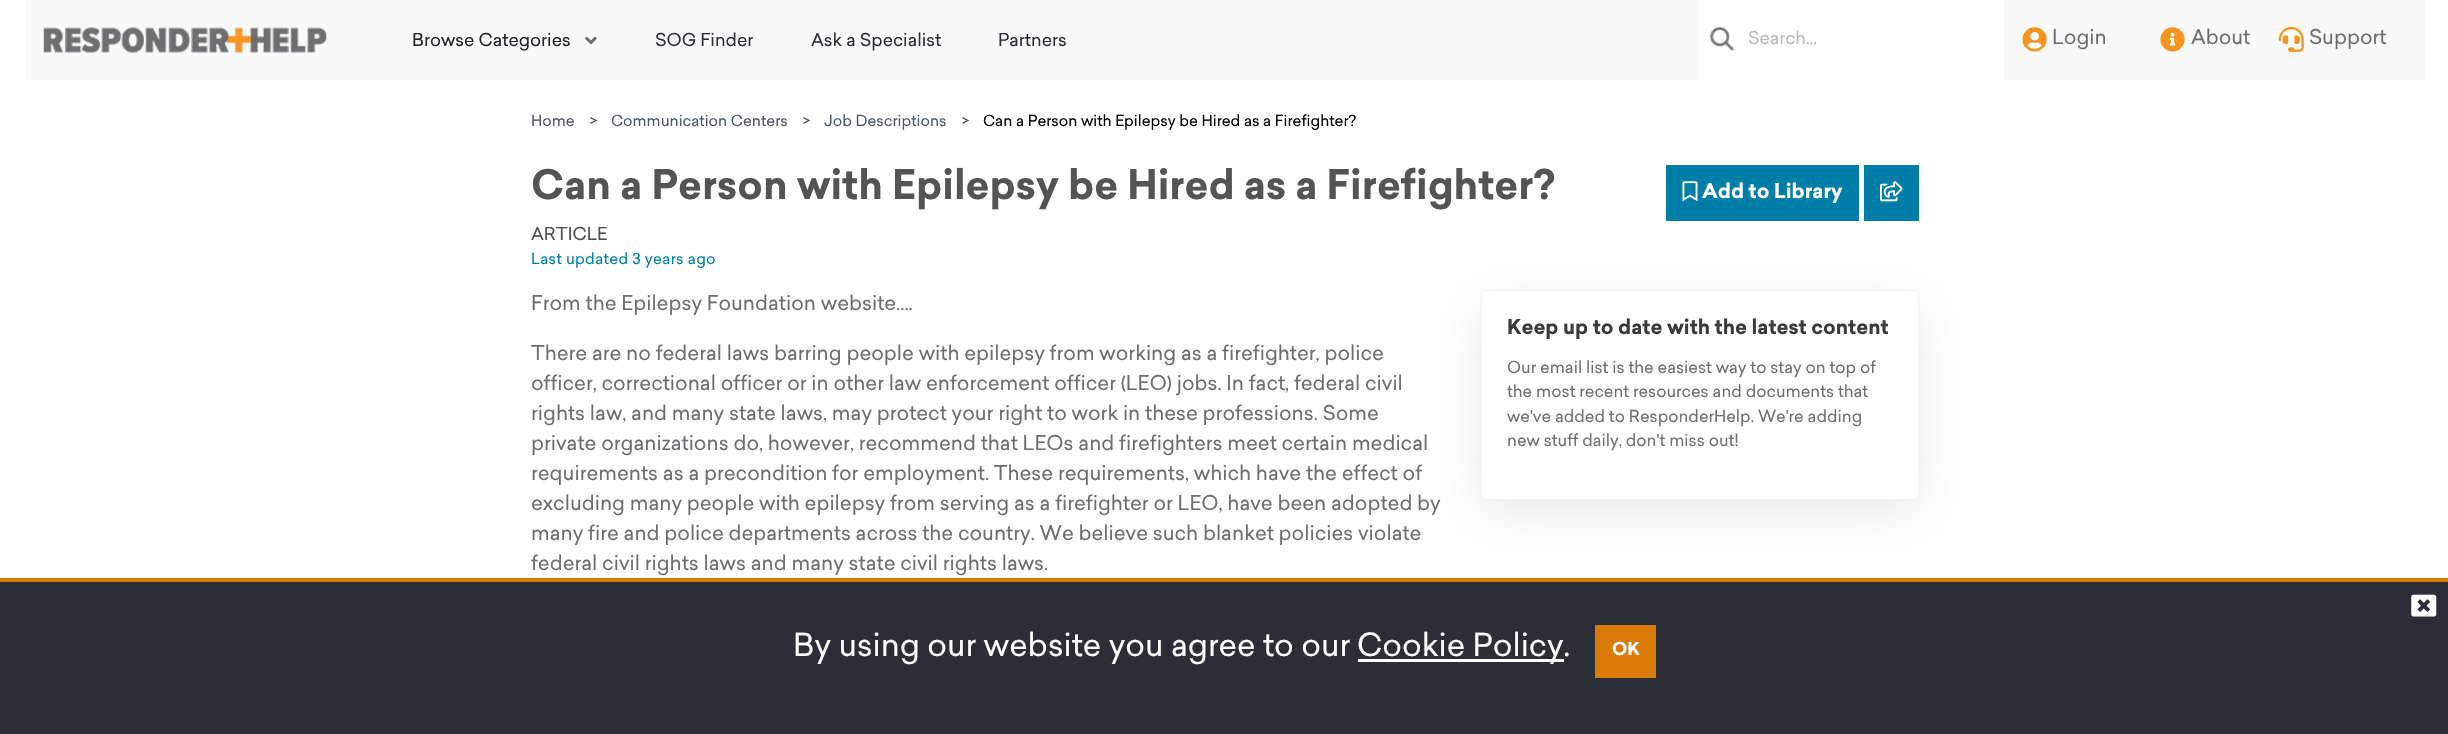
void draw(SkCanvas* canvas) {
	SkPaint paint;
	paint.setAntiAlias(true);
	auto spacedText = [&](const char* s, float x, float y, const SkFont& font, const SkPaint& ink, float letter, float word) {
		std::vector<SkGlyphID> glyphs(font.countText(s, strlen(s), SkTextEncoding::kUTF8));
		std::vector<float> xs(glyphs.size());
		font.textToGlyphs(s, strlen(s), SkTextEncoding::kUTF8, glyphs);
		font.getXPos(glyphs, xs, x);
		float extra = 0;
		for (size_t i = 0; i < glyphs.size(); i++) {
			xs[i] += extra;
			extra += letter + word * (glyphs[i] == font.unicharToGlyph(' '));
		}
		canvas->drawTextBlob(SkTextBlob::MakeFromPosHGlyphs(glyphs, xs, y, font), 0, 0, ink);
	};
	canvas->clear(0xffffffff);
	paint.setColor(0xfff9f9f9);
	canvas->drawRect(SkRect::MakeXYWH(25, 0, 2400, 80), paint);
	canvas->drawImageRect(SkImages::DeferredFromEncodedData(SkData::MakeFromFileName("img1.png")), SkRect::MakeXYWH(43, 27, 284, 26), SkSamplingOptions());
	SkFont f1(fontMgr->matchFamilyStyle("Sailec", SkFontStyle::Normal()), 17.5);
	f1.setSubpixel(true);
	paint.setColor(0xff212529);
	canvas->drawString("Browse Categories", 412, 46, f1, paint);
	canvas->drawImageRect(SkImages::DeferredFromEncodedData(SkData::MakeFromFileName("img2.png")), SkRect::MakeXYWH(585, 36, 12, 9), SkSamplingOptions());
	paint.setColor(0xff2b2e35);
	canvas->drawString("SOG Finder", 655, 46, f1, paint);
	canvas->drawString("Ask a Specialist", 811, 46, f1, paint);
	canvas->drawString("Partners", 998, 46, f1, paint);
	paint.setColor(0xffffffff);
	canvas->drawRect(SkRect::MakeXYWH(1698, 0, 306, 80), paint);
	canvas->drawImageRect(SkImages::DeferredFromEncodedData(SkData::MakeFromFileName("img3.png")), SkRect::MakeXYWH(1710, 26, 24, 26), SkSamplingOptions());
	paint.setColor(0xffb6babe);
	canvas->drawString("Search...", 1748, 44, f1, paint);
	canvas->drawImageRect(SkImages::DeferredFromEncodedData(SkData::MakeFromFileName("img4.png")), SkRect::MakeXYWH(2022, 27, 25, 25), SkSamplingOptions());
	SkFont f2(fontMgr->matchFamilyStyle("Sailec", SkFontStyle::Normal()), 20);
	f2.setSubpixel(true);
	paint.setColor(0xff6d6e71);
	canvas->drawString("Login", 2052, 44, f2, paint);
	canvas->drawImageRect(SkImages::DeferredFromEncodedData(SkData::MakeFromFileName("img5.png")), SkRect::MakeXYWH(2160, 27, 25, 25), SkSamplingOptions());
	canvas->drawString("About", 2191, 44, f2, paint);
	canvas->drawImageRect(SkImages::DeferredFromEncodedData(SkData::MakeFromFileName("img6.png")), SkRect::MakeXYWH(2278, 26, 26, 26), SkSamplingOptions());
	canvas->drawString("Support", 2309, 44, f2, paint);
	SkFont f3(fontMgr->matchFamilyStyle("Sailec", SkFontStyle::Normal()), 15);
	f3.setSubpixel(true);
	paint.setColor(0xff4b5763);
	canvas->drawString("Home", 531, 126, f3, paint);
	canvas->drawString(">", 590, 126, f3, paint);
	canvas->drawString("Communication Centers", 611, 126, f3, paint);
	canvas->drawString(">", 803, 126, f3, paint);
	canvas->drawString("Job Descriptions", 824, 126, f3, paint);
	canvas->drawString(">", 962, 126, f3, paint);
	paint.setColor(0xff000000);
	canvas->drawString("Can a Person with Epilepsy be Hired as a Firefighter?", 983, 126, f3, paint);
	SkFont f4(fontMgr->matchFamilyStyle("Sailec", SkFontStyle::Bold()), 40);
	f4.setSubpixel(true);
	paint.setColor(0xff525556);
	canvas->drawString("Can a Person with Epilepsy be Hired as a Firefighter?", 531, 199, f4, paint);
	paint.setColor(0xff4d4e51);
	canvas->drawString("ARTICLE", 531, 240, f1, paint);
	paint.setColor(0xff007ea8);
	spacedText("Last updated 3 years ago", 531, 264, f3, paint, 0.3, 0);
	canvas->drawRect(SkRect::MakeXYWH(1666, 165, 193, 56), paint);
	canvas->drawImageRect(SkImages::DeferredFromEncodedData(SkData::MakeFromFileName("img7.png")), SkRect::MakeXYWH(1682, 181, 16, 21), SkSamplingOptions());
	SkFont f5(fontMgr->matchFamilyStyle("Sailec", SkFontStyle::Bold()), 20);
	f5.setSubpixel(true);
	paint.setColor(0xffffffff);
	canvas->drawString("Add to Library", 1702, 198, f5, paint);
	paint.setColor(0xff007ea8);
	canvas->drawRect(SkRect::MakeXYWH(1864, 165, 55, 56), paint);
	canvas->drawImageRect(SkImages::DeferredFromEncodedData(SkData::MakeFromFileName("img8.png")), SkRect::MakeXYWH(1880, 181, 23, 21), SkSamplingOptions());
	paint.setColor(0xff6d6e71);
	canvas->drawString("From the Epilepsy Foundation website....", 531, 310, f2, paint);
	canvas->drawString("There are no federal laws barring people with epilepsy from working as a firefighter, police", 531, 360, f2, paint);
	canvas->drawString("officer, correctional officer or in other law enforcement officer (LEO) jobs. In fact, federal civil", 531, 390, f2, paint);
	canvas->drawString("rights law, and many state laws, may protect your right to work in these professions. Some", 531, 420, f2, paint);
	canvas->drawString("private organizations do, however, recommend that LEOs and firefighters meet certain medical", 531, 450, f2, paint);
	canvas->drawString("requirements as a precondition for employment. These requirements, which have the effect of", 531, 480, f2, paint);
	canvas->drawString("excluding many people with epilepsy from serving as a firefighter or LEO, have been adopted by", 531, 510, f2, paint);
	canvas->drawString("many fire and police departments across the country. We believe such blanket policies violate", 531, 540, f2, paint);
	canvas->drawString("federal civil rights laws and many state civil rights laws.", 531, 570, f2, paint);
	paint.setColor(0x266d6e71);
	paint.setMaskFilter(SkMaskFilter::MakeBlur(kNormal_SkBlurStyle, 25));
	canvas->drawRoundRect(SkRect::MakeXYWH(1481, 303, 438, 210), 5, 5, paint);
	paint.setMaskFilter(nullptr);
	paint.setColor(0xffffffff);
	canvas->drawRoundRect(SkRect::MakeXYWH(1481.5, 290.5, 437, 209), 4.5, 4.5, paint);
	paint.setStroke(true);
	paint.setStrokeWidth(1);
	paint.setColor(0xfff3f3f3);
	canvas->drawRoundRect(SkRect::MakeXYWH(1481.5, 290.5, 437, 209), 4.5, 4.5, paint);
	paint.setStroke(false);
	paint.setColor(0xff3b3b3d);
	canvas->drawString("Keep up to date with the latest content", 1507, 334, f5, paint);
	SkFont f6(fontMgr->matchFamilyStyle("Sailec", SkFontStyle::Normal()), 16.25);
	f6.setSubpixel(true);
	paint.setColor(0xff6d6e71);
	canvas->drawString("Our email list is the easiest way to stay on top of", 1507, 373, f6, paint);
	canvas->drawString("the most recent resources and documents that", 1507, 397, f6, paint);
	canvas->drawString("we've added to ResponderHelp. We're adding", 1507, 422, f6, paint);
	canvas->drawString("new stuff daily, don't miss out!", 1507, 446, f6, paint);
	paint.setColor(0xff2b2e35);
	canvas->drawRect(SkRect::MakeXYWH(0, 582, 2448, 152), paint);
	paint.setColor(0xffd97a08);
	canvas->drawRect(SkRect::MakeXYWH(0, 578, 2448, 4), paint);
	canvas->drawImageRect(SkImages::DeferredFromEncodedData(SkData::MakeFromFileName("img9.png")), SkRect::MakeXYWH(2411, 594, 26, 23), SkSamplingOptions());
	SkFont f7(fontMgr->matchFamilyStyle("Sailec", SkFontStyle::Normal()), 31.25);
	f7.setSubpixel(true);
	paint.setColor(0xffffffff);
	canvas->drawString("By using our website you agree to our", 793, 656, f7, paint);
	canvas->drawRect(SkRect::MakeXYWH(1358, 659, 206, 3), paint);
	canvas->drawString("Cookie Policy.", 1357, 656, f7, paint);
	paint.setColor(0xffd97a08);
	canvas->drawRect(SkRect::MakeXYWH(1595, 625, 61, 53), paint);
	SkFont f8(fontMgr->matchFamilyStyle("Sailec", SkFontStyle::Bold()), 17.5);
	f8.setSubpixel(true);
	paint.setColor(0xffffffff);
	canvas->drawString("OK", 1612, 655, f8, paint);
}
